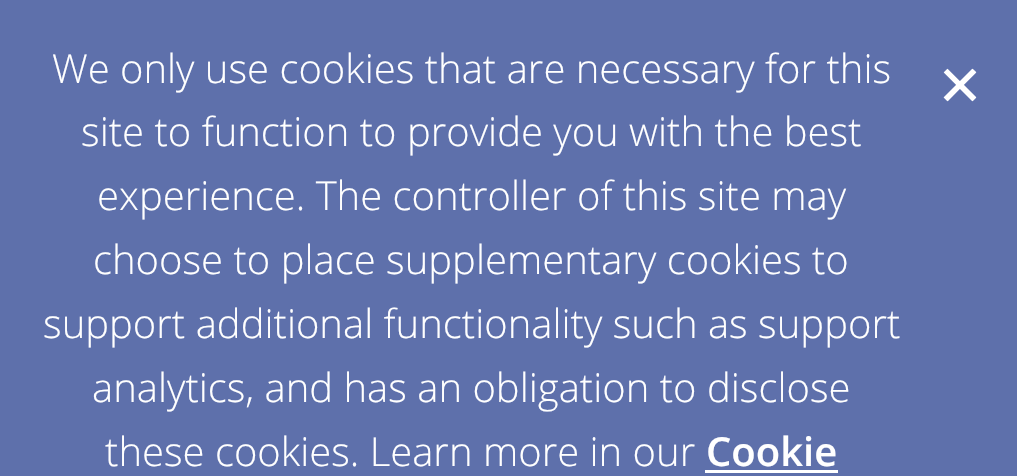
void draw(SkCanvas* canvas) {
	SkPaint paint;
	paint.setAntiAlias(true);
	canvas->clear(0xff5e70ab);
	SkFont f1(fontMgr->matchFamilyStyle("Open Sans", SkFontStyle(300, SkFontStyle::kNormal_Width, SkFontStyle::kUpright_Slant)), 40);
	f1.setSubpixel(true);
	paint.setColor(0xffffffff);
	canvas->drawString("We only use cookies that are necessary for this", 52, 83, f1, paint);
	canvas->drawString("site to function to provide you with the best", 81, 146, f1, paint);
	canvas->drawString("experience. The controller of this site may", 97, 210, f1, paint);
	canvas->drawString("choose to place supplementary cookies to", 93, 274, f1, paint);
	canvas->drawString("support additional functionality such as support", 43, 338, f1, paint);
	canvas->drawString("analytics, and has an obligation to disclose", 92, 402, f1, paint);
	canvas->drawString("these cookies. Learn more in our", 105, 466, f1, paint);
	SkFont f2(fontMgr->matchFamilyStyle("Open Sans", SkFontStyle(600, SkFontStyle::kNormal_Width, SkFontStyle::kUpright_Slant)), 40);
	f2.setSubpixel(true);
	canvas->drawString("Cookie", 706, 466, f2, paint);
	canvas->drawRect(SkRect::MakeXYWH(705, 470, 133, 3), paint);
	canvas->drawImageRect(SkImages::DeferredFromEncodedData(SkData::MakeFromFileName("img1.png")), SkRect::MakeXYWH(943, 68, 34, 34), SkSamplingOptions());
}
